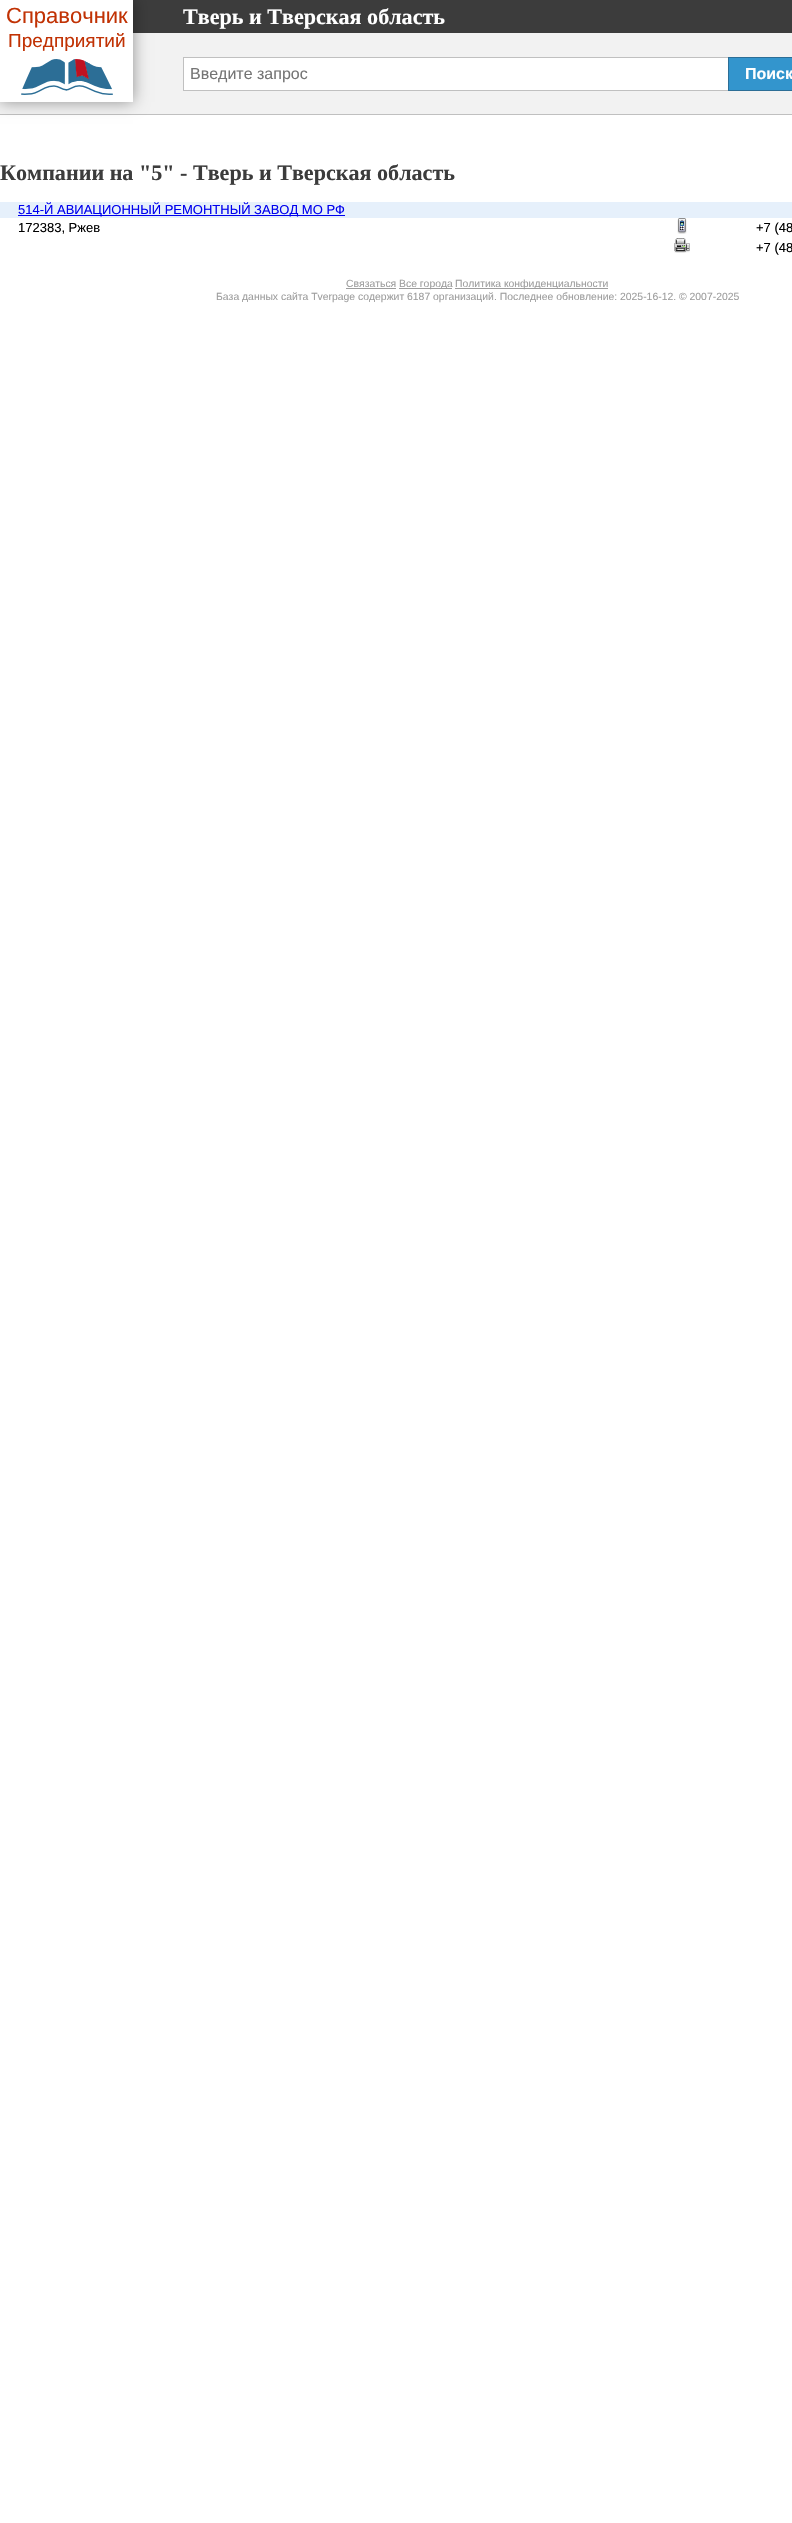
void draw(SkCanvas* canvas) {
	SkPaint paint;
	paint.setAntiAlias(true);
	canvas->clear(0xffffffff);
	paint.setColor(0xff3c3c3c);
	canvas->drawRect(SkRect::MakeXYWH(133, 0, 659, 33), paint);
	paint.setColor(0xfff2f2f2);
	canvas->drawRect(SkRect::MakeXYWH(0, 33, 792, 81), paint);
	paint.setColor(0xffc0c0c0);
	canvas->drawRect(SkRect::MakeXYWH(0, 114, 792, 1), paint);
	paint.setColor(0x66000000);
	paint.setMaskFilter(SkMaskFilter::MakeBlur(kNormal_SkBlurStyle, 7.5));
	canvas->drawRect(SkRect::MakeXYWH(0, 0, 133, 102), paint);
	paint.setMaskFilter(nullptr);
	paint.setColor(0xffffffff);
	canvas->drawRect(SkRect::MakeXYWH(0, 0, 133, 102), paint);
	SkFont f1(fontMgr->matchFamilyStyle("Liberation Sans", SkFontStyle::Normal()), 22);
	f1.setSubpixel(true);
	paint.setColor(0xffc13204);
	canvas->drawString("Справочник", 6, 23, f1, paint);
	SkFont f2(fontMgr->matchFamilyStyle("Liberation Sans", SkFontStyle::Normal()), 19);
	f2.setSubpixel(true);
	canvas->drawString("Предприятий", 8, 47, f2, paint);
	canvas->drawImageRect(SkImages::DeferredFromEncodedData(SkData::MakeFromFileName("img1.png")), SkRect::MakeXYWH(21, 59, 92, 36), SkSamplingOptions());
	SkFont f3(fontMgr->matchFamilyStyle("Liberation Serif", SkFontStyle::Bold()), 22.1);
	f3.setSubpixel(true);
	paint.setColor(0xffffffff);
	canvas->drawString("Тверь и Тверская область", 183, 24, f3, paint);
	canvas->drawRect(SkRect::MakeXYWH(184, 58, 544, 32), paint);
	paint.setColor(0xffc0c0c0);
	canvas->drawRect(SkRect::MakeXYWH(183, 57, 545, 1), paint);
	canvas->drawRect(SkRect::MakeXYWH(183, 90, 545, 1), paint);
	canvas->drawRect(SkRect::MakeXYWH(183, 57, 1, 34), paint);
	SkFont f4(fontMgr->matchFamilyStyle("Liberation Sans", SkFontStyle::Normal()), 16);
	f4.setSubpixel(true);
	paint.setColor(0xff757575);
	canvas->drawString("Введите запрос", 190, 79, f4, paint);
	paint.setColor(0xff3395cd);
	canvas->drawRect(SkRect::MakeXYWH(728.5, 57.5, 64, 33), paint);
	paint.setStroke(true);
	paint.setStrokeWidth(1);
	paint.setColor(0xff2c6e96);
	canvas->drawRect(SkRect::MakeXYWH(728.5, 57.5, 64, 33), paint);
	SkFont f5(fontMgr->matchFamilyStyle("Liberation Sans", SkFontStyle::Bold()), 16);
	f5.setSubpixel(true);
	paint.setStroke(false);
	paint.setColor(0xffffffff);
	canvas->drawString("Поиск", 745, 79, f5, paint);
	paint.setColor(0xff3c3c3c);
	canvas->drawString("Компании на \"5\" - Тверь и Тверская область", 0, 180, f3, paint);
	paint.setColor(0xffe6f0fb);
	canvas->drawRect(SkRect::MakeXYWH(0, 202, 792, 16), paint);
	paint.setColor(0xff0000ee);
	canvas->drawRect(SkRect::MakeXYWH(18, 215, 327, 1), paint);
	SkFont f6(fontMgr->matchFamilyStyle("Liberation Sans", SkFontStyle::Normal()), 13);
	f6.setSubpixel(true);
	canvas->drawString("514-Й АВИАЦИОННЫЙ РЕМОНТНЫЙ ЗАВОД МО РФ", 18, 214, f6, paint);
	paint.setColor(0xff000000);
	canvas->drawString("172383, Ржев", 18, 232, f6, paint);
	canvas->drawImageRect(SkImages::DeferredFromEncodedData(SkData::MakeFromFileName("img2.png")), SkRect::MakeXYWH(677, 218, 10, 16), SkSamplingOptions());
	canvas->drawString("+7 (48", 756, 232, f6, paint);
	canvas->drawImageRect(SkImages::DeferredFromEncodedData(SkData::MakeFromFileName("img3.png")), SkRect::MakeXYWH(674, 238, 16, 15), SkSamplingOptions());
	canvas->drawString("+7 (48", 756, 252, f6, paint);
	SkFont f7(fontMgr->matchFamilyStyle("Liberation Sans", SkFontStyle::Normal()), 10.4);
	f7.setSubpixel(true);
	paint.setColor(0xff9d9d9d);
	canvas->drawString("Связаться", 346, 287, f7, paint);
	canvas->drawRect(SkRect::MakeXYWH(346, 288, 50, 1), paint);
	canvas->drawRect(SkRect::MakeXYWH(399, 288, 53, 1), paint);
	canvas->drawString("Все города", 399, 287, f7, paint);
	canvas->drawRect(SkRect::MakeXYWH(455, 288, 153, 1), paint);
	canvas->drawString("Политика конфиденциальности", 455, 287, f7, paint);
	canvas->drawString("База данных сайта Tverpage содержит 6187 организаций. Последнее обновление: 2025-16-12. © 2007-2025", 216, 300, f7, paint);
}
